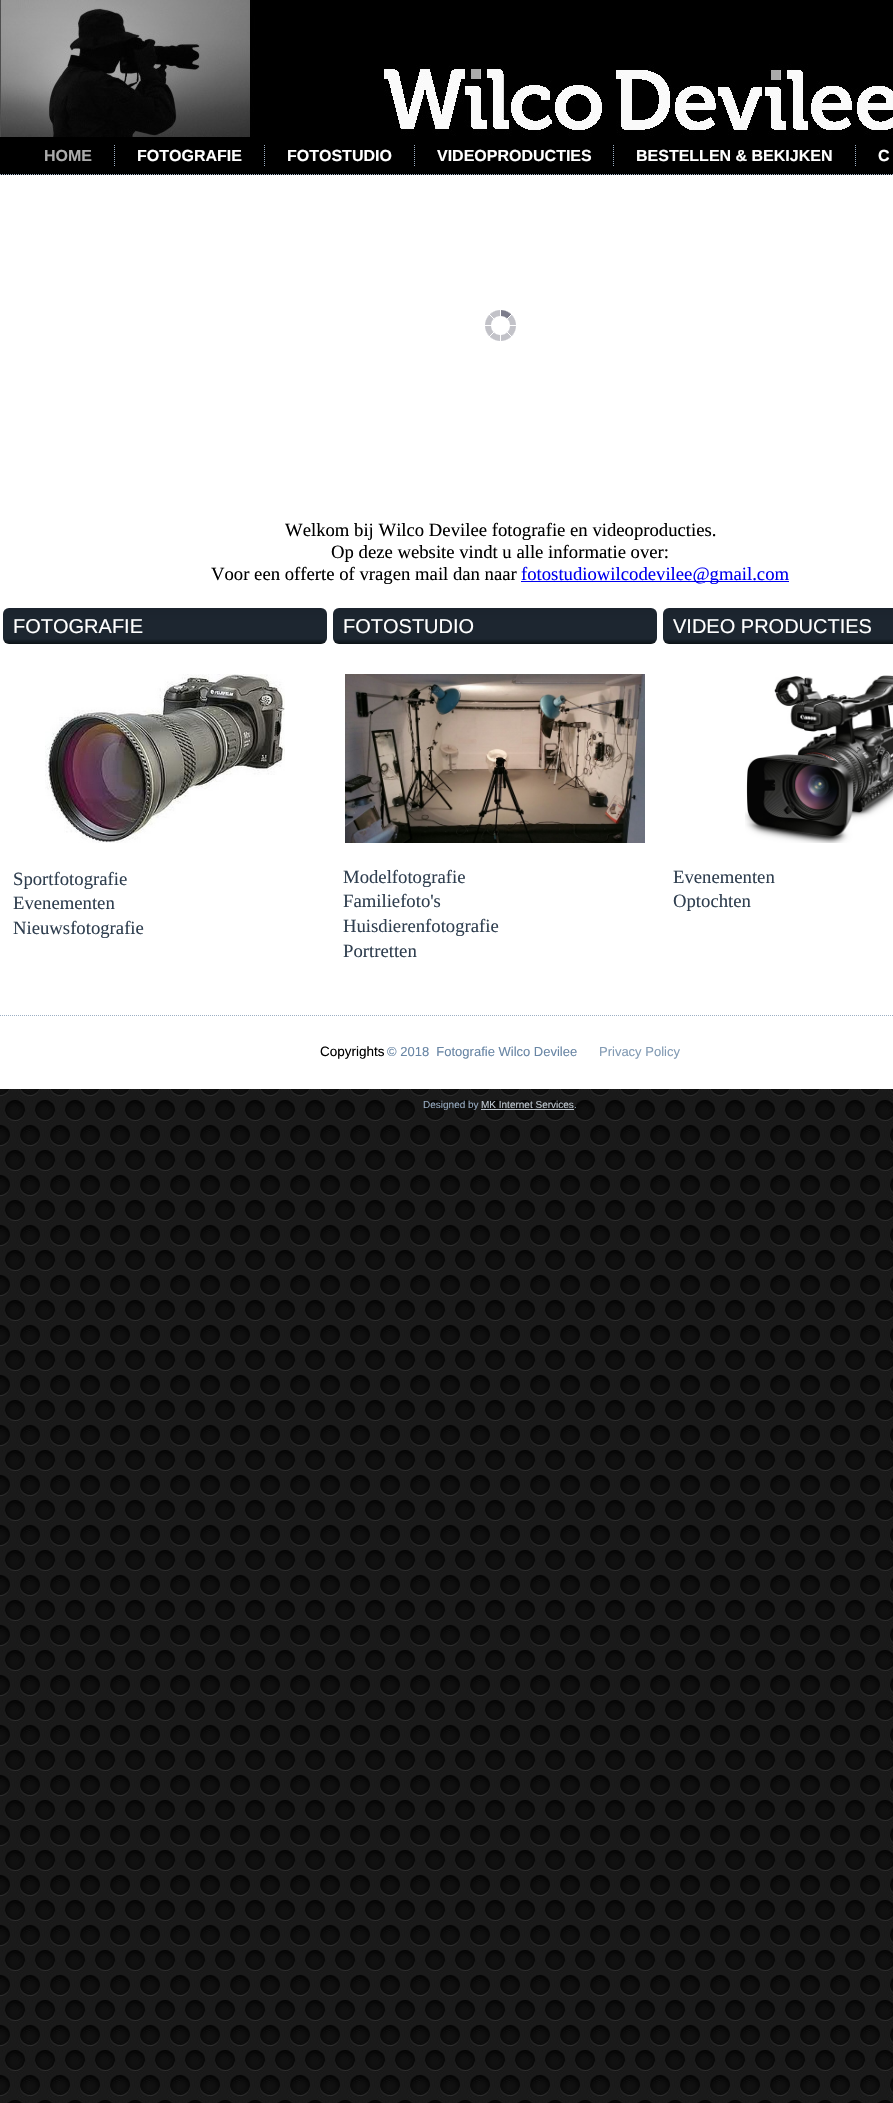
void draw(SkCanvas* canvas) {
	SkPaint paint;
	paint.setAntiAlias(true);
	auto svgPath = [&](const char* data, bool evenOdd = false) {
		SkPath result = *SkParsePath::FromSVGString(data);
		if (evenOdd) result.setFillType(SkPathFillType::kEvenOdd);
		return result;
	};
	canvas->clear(0xffffffff);
	canvas->drawImageRect(SkImages::DeferredFromEncodedData(SkData::MakeFromFileName("img1.png")), SkRect::MakeXYWH(0, 1089, 893, 1014), SkSamplingOptions());
	canvas->drawImageRect(SkImages::DeferredFromEncodedData(SkData::MakeFromFileName("img2.png")), SkRect::MakeXYWH(0, 0, 893, 137), SkSamplingOptions());
	paint.setColor(0xff000000);
	canvas->drawRect(SkRect::MakeXYWH(0, 137, 893, 38), paint);
	paint.setStroke(true);
	paint.setStrokeWidth(1);
	paint.setColor(0xffa3b4c8);
	paint.setPathEffect(SkDashPathEffect::Make({{1, 1}}, 0));
	canvas->drawPath(svgPath("M0 174.5H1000"), paint);
	paint.setPathEffect(nullptr);
	SkFont f1(fontMgr->matchFamilyStyle("Liberation Sans", SkFontStyle::Bold()), 16);
	f1.setSubpixel(true);
	paint.setStroke(false);
	paint.setColor(0xffababab);
	canvas->drawString("HOME", 44, 161, f1, paint);
	canvas->drawImageRect(SkImages::DeferredFromEncodedData(SkData::MakeFromFileName("img3.png")), SkRect::MakeXYWH(114, 145, 1, 21), SkSamplingOptions());
	paint.setColor(0xffffffff);
	canvas->drawString("FOTOGRAFIE", 137, 161, f1, paint);
	canvas->drawImageRect(SkImages::DeferredFromEncodedData(SkData::MakeFromFileName("img3.png")), SkRect::MakeXYWH(264, 145, 1, 21), SkSamplingOptions());
	canvas->drawString("FOTOSTUDIO", 287, 161, f1, paint);
	canvas->drawImageRect(SkImages::DeferredFromEncodedData(SkData::MakeFromFileName("img3.png")), SkRect::MakeXYWH(414, 145, 1, 21), SkSamplingOptions());
	canvas->drawString("VIDEOPRODUCTIES", 437, 161, f1, paint);
	canvas->drawImageRect(SkImages::DeferredFromEncodedData(SkData::MakeFromFileName("img3.png")), SkRect::MakeXYWH(613, 145, 1, 21), SkSamplingOptions());
	canvas->drawString("BESTELLEN & BEKIJKEN", 636, 161, f1, paint);
	canvas->drawImageRect(SkImages::DeferredFromEncodedData(SkData::MakeFromFileName("img3.png")), SkRect::MakeXYWH(855, 145, 1, 21), SkSamplingOptions());
	canvas->drawString("C", 878, 161, f1, paint);
	canvas->drawImageRect(SkImages::DeferredFromEncodedData(SkData::MakeFromFileName("img4.png")), SkRect::MakeXYWH(485, 310, 31, 31), SkSamplingOptions());
	SkFont f2(fontMgr->matchFamilyStyle("Liberation Serif", SkFontStyle::Normal()), 18.7);
	f2.setSubpixel(true);
	paint.setColor(0xff000000);
	canvas->drawString("Welkom bij Wilco Devilee fotografie en videoproducties.", 285, 536, f2, paint);
	canvas->drawString("Op deze website vindt u alle informatie over:", 331, 558, f2, paint);
	canvas->drawString("Voor een offerte of vragen mail dan naar", 211, 580, f2, paint);
	paint.setColor(0xff0000ee);
	canvas->drawRect(SkRect::MakeXYWH(521, 581, 268, 1), paint);
	canvas->drawString("fotostudiowilcodevilee@gmail.com", 521, 580, f2, paint);
	{
		const SkColor colors[] = {0xff1b232d, 0xff1d2630, 0xff1d2630, 0xff0d1216};
		const float stops[] = {0, 0.4, 0.85, 1};
		const SkPoint ends[] = {{165, 608}, {165, 644}};
		paint.setShader(SkGradientShader::MakeLinear(ends, colors, stops, 4, SkTileMode::kClamp));
		paint.setAlpha(255);
	}
	canvas->drawRoundRect(SkRect::MakeXYWH(3, 608, 324, 36), 6, 6, paint);
	SkFont f3(fontMgr->matchFamilyStyle("Liberation Sans", SkFontStyle::Normal()), 20);
	f3.setSubpixel(true);
	paint.setShader(nullptr);
	paint.setColor(0xffffffff);
	canvas->drawString("FOTOGRAFIE", 13, 633, f3, paint);
	canvas->drawImageRect(SkImages::DeferredFromEncodedData(SkData::MakeFromFileName("img5.png")), SkRect::MakeXYWH(45, 674, 240, 169), SkSamplingOptions());
	paint.setColor(0xff303f50);
	canvas->drawString("Sportfotografie", 13, 885, f2, paint);
	canvas->drawString("Evenementen", 13, 909, f2, paint);
	canvas->drawString("Nieuwsfotografie", 13, 934, f2, paint);
	{
		const SkColor colors[] = {0xff1b232d, 0xff1d2630, 0xff1d2630, 0xff0d1216};
		const float stops[] = {0, 0.4, 0.85, 1};
		const SkPoint ends[] = {{495, 608}, {495, 644}};
		paint.setShader(SkGradientShader::MakeLinear(ends, colors, stops, 4, SkTileMode::kClamp));
		paint.setAlpha(255);
	}
	canvas->drawRoundRect(SkRect::MakeXYWH(333, 608, 324, 36), 6, 6, paint);
	paint.setShader(nullptr);
	paint.setColor(0xffffffff);
	canvas->drawString("FOTOSTUDIO", 343, 633, f3, paint);
	canvas->drawImageRect(SkImages::DeferredFromEncodedData(SkData::MakeFromFileName("img6.png")), SkRect::MakeXYWH(345, 674, 300, 169), SkSamplingOptions());
	paint.setColor(0xff303f50);
	canvas->drawString("Modelfotografie", 343, 883, f2, paint);
	canvas->drawString("Familiefoto's", 343, 907, f2, paint);
	canvas->drawString("Huisdierenfotografie", 343, 932, f2, paint);
	canvas->drawString("Portretten", 343, 957, f2, paint);
	{
		const SkColor colors[] = {0xff1b232d, 0xff1d2630, 0xff1d2630, 0xff0d1216};
		const float stops[] = {0, 0.4, 0.85, 1};
		const SkPoint ends[] = {{830, 608}, {830, 644}};
		paint.setShader(SkGradientShader::MakeLinear(ends, colors, stops, 4, SkTileMode::kClamp));
		paint.setAlpha(255);
	}
	canvas->drawRoundRect(SkRect::MakeXYWH(663, 608, 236, 36), 6, 6, paint);
	paint.setShader(nullptr);
	paint.setColor(0xffffffff);
	canvas->drawString("VIDEO PRODUCTIES", 673, 633, f3, paint);
	canvas->drawImageRect(SkImages::DeferredFromEncodedData(SkData::MakeFromFileName("img7.png")), SkRect::MakeXYWH(745, 675, 148, 168), SkSamplingOptions());
	paint.setColor(0xff303f50);
	canvas->drawString("Evenementen", 673, 883, f2, paint);
	canvas->drawString("Optochten", 673, 907, f2, paint);
	paint.setStroke(true);
	paint.setColor(0xff9cafc4);
	paint.setPathEffect(SkDashPathEffect::Make({{1, 1}}, 0));
	canvas->drawPath(svgPath("M0 1015.5H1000"), paint);
	paint.setPathEffect(nullptr);
	SkFont f4(fontMgr->matchFamilyStyle("Liberation Sans", SkFontStyle::Normal()), 13.5);
	f4.setSubpixel(true);
	paint.setStroke(false);
	paint.setColor(0xff000000);
	canvas->drawString("Copyrights", 320, 1056, f4, paint);
	SkFont f5(fontMgr->matchFamilyStyle("Liberation Sans", SkFontStyle::Normal()), 13);
	f5.setSubpixel(true);
	paint.setColor(0xff6986a5);
	canvas->drawString("© 2018  Fotografie Wilco Devilee", 387, 1056, f5, paint);
	paint.setColor(0xff839bb4);
	canvas->drawString("Privacy Policy", 599, 1056, f5, paint);
	SkFont f6(fontMgr->matchFamilyStyle("Liberation Sans", SkFontStyle::Normal()), 10);
	f6.setSubpixel(true);
	paint.setColor(0xff96aac0);
	canvas->drawString("Designed by", 423, 1108, f6, paint);
	paint.setColor(0xffbec7cf);
	canvas->drawString("MK Internet Services", 481, 1108, f6, paint);
	paint.setColor(0xff96aac0);
	canvas->drawString(".", 574, 1108, f6, paint);
	paint.setColor(0xffbec7cf);
	canvas->drawRect(SkRect::MakeXYWH(481, 1109, 93, 1), paint);
}
